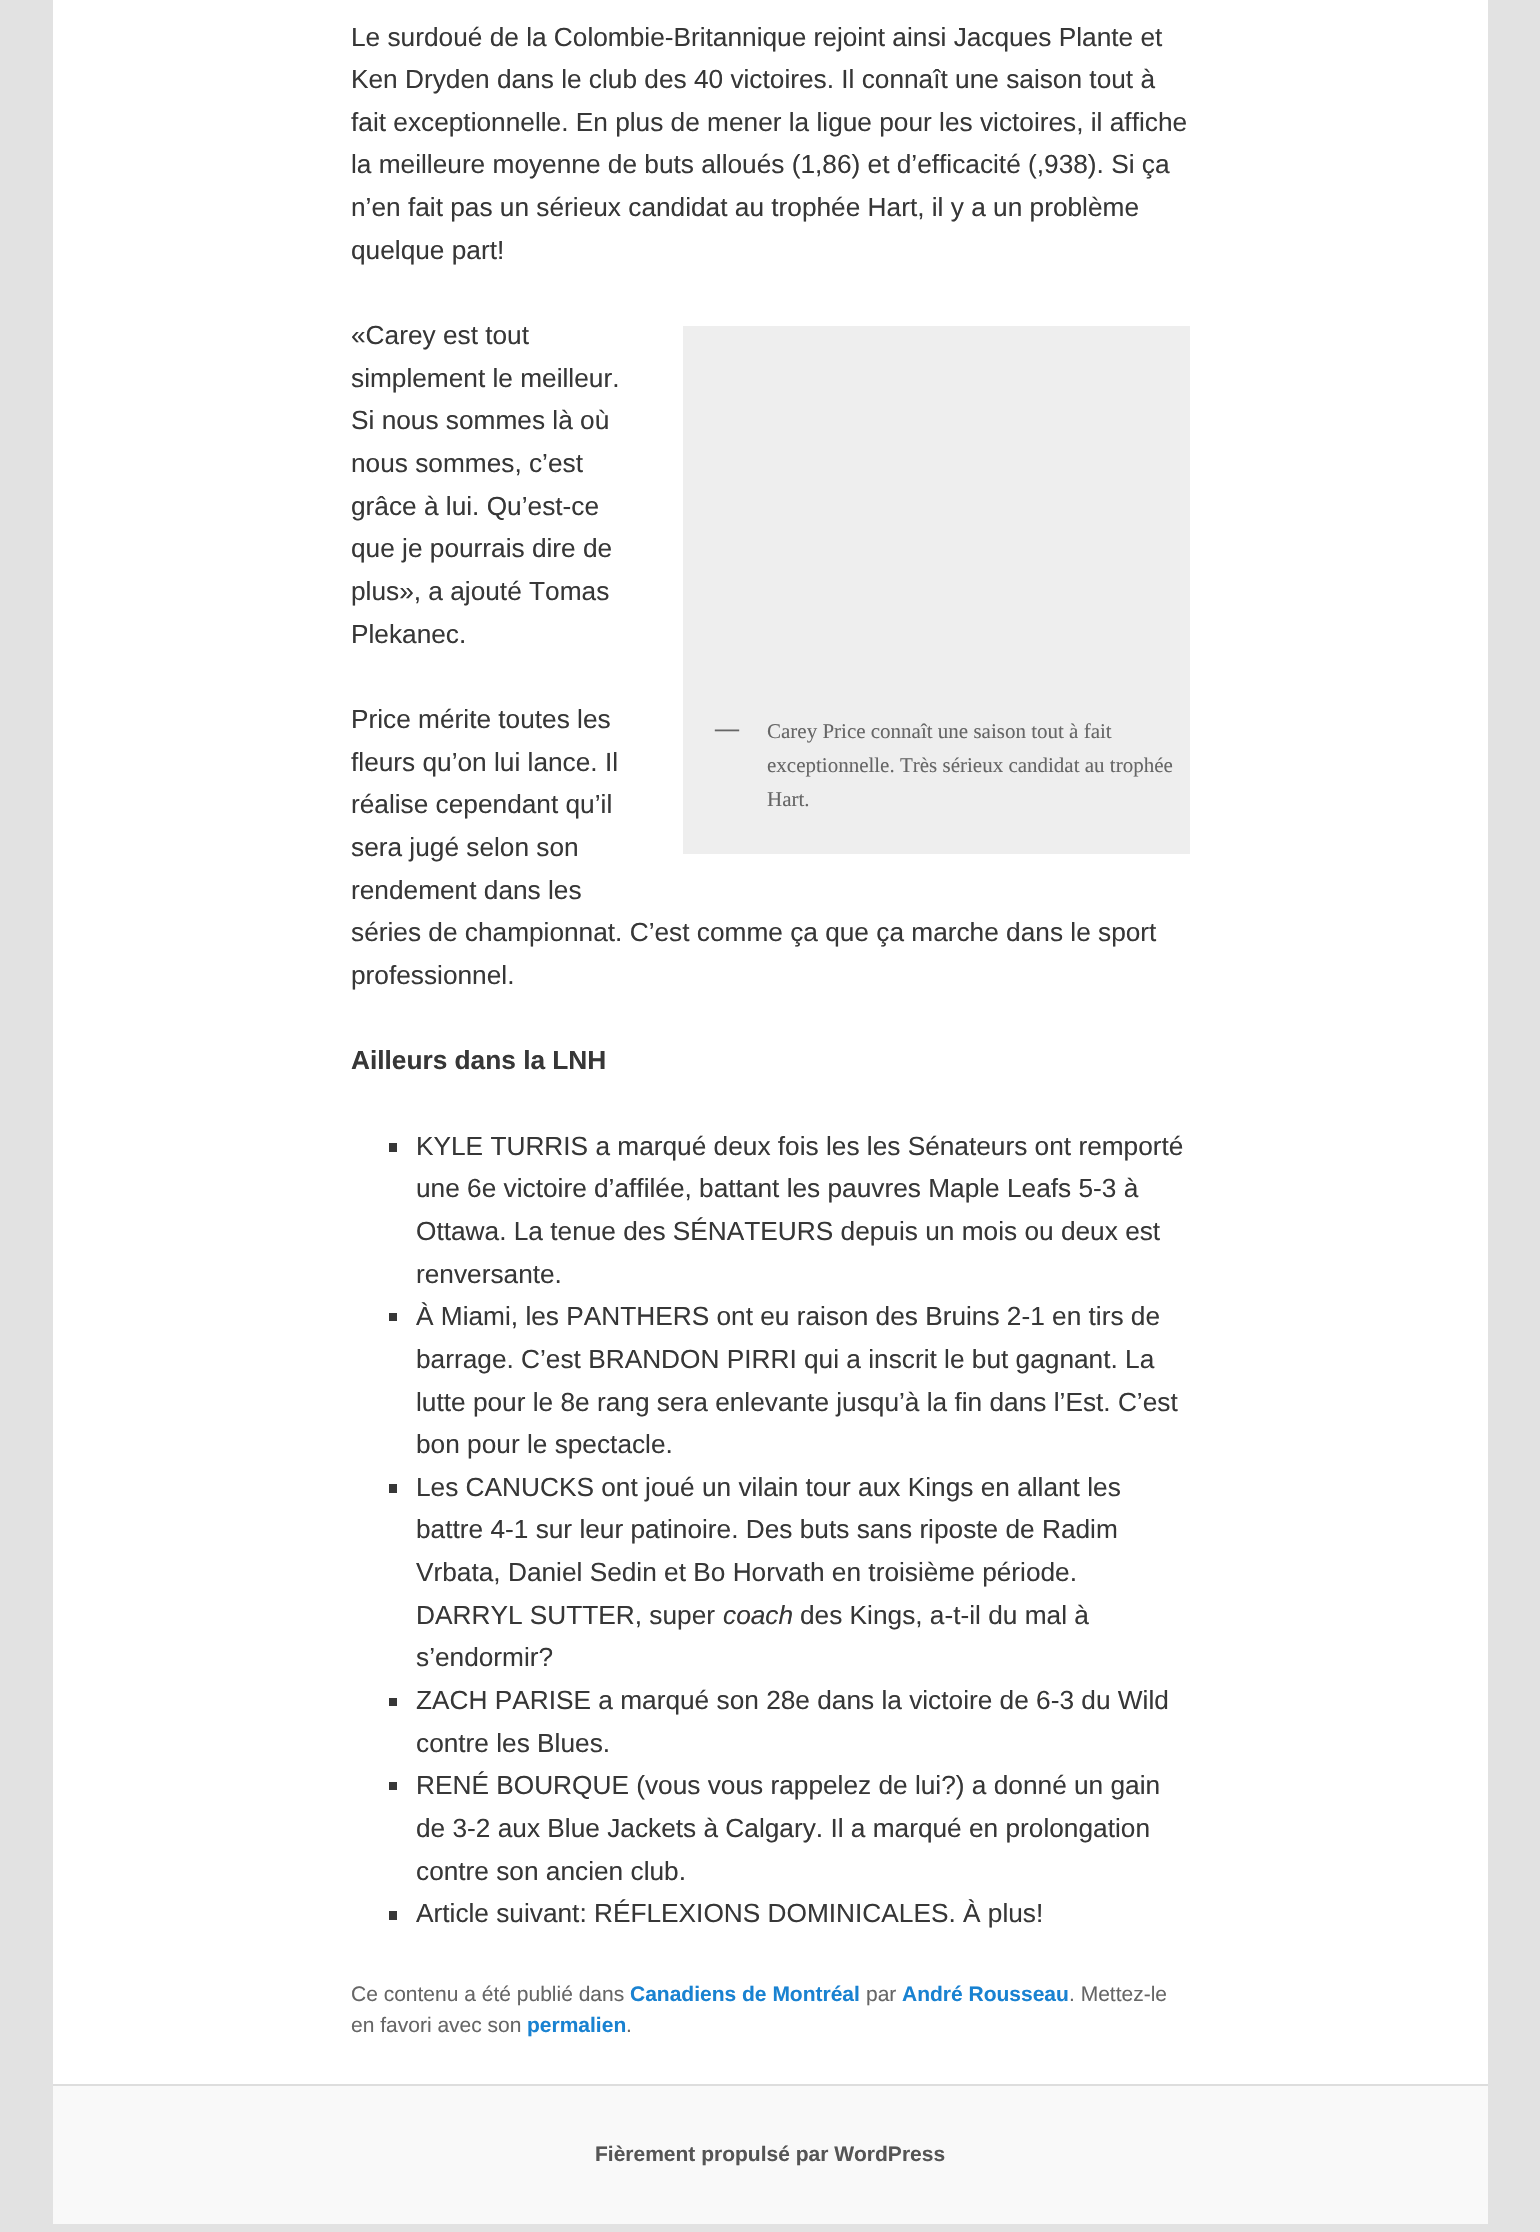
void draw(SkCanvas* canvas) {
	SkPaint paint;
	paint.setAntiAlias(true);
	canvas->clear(0xffe2e2e2);
	paint.setColor(0xffffffff);
	canvas->drawRect(SkRect::MakeXYWH(53, 0, 1435, 2084), paint);
	SkFont f1(fontMgr->matchFamilyStyle("Liberation Sans", SkFontStyle::Normal()), 26.25);
	f1.setSubpixel(true);
	paint.setColor(0xff373737);
	canvas->drawString("Le surdoué de la Colombie-Britannique rejoint ainsi Jacques Plante et", 351, 46, f1, paint);
	canvas->drawString("Ken Dryden dans le club des 40 victoires. Il connaît une saison tout à", 351, 88, f1, paint);
	canvas->drawString("fait exceptionnelle. En plus de mener la ligue pour les victoires, il affiche", 351, 131, f1, paint);
	canvas->drawString("la meilleure moyenne de buts alloués (1,86) et d’efficacité (,938). Si ça", 351, 173, f1, paint);
	canvas->drawString("n’en fait pas un sérieux candidat au trophée Hart, il y a un problème", 351, 216, f1, paint);
	canvas->drawString("quelque part!", 351, 259, f1, paint);
	canvas->drawString("«Carey est tout", 351, 344, f1, paint);
	canvas->drawString("simplement le meilleur.", 351, 387, f1, paint);
	canvas->drawString("Si nous sommes là où", 351, 429, f1, paint);
	canvas->drawString("nous sommes, c’est", 351, 472, f1, paint);
	canvas->drawString("grâce à lui. Qu’est-ce", 351, 515, f1, paint);
	canvas->drawString("que je pourrais dire de", 351, 557, f1, paint);
	canvas->drawString("plus», a ajouté Tomas", 351, 600, f1, paint);
	canvas->drawString("Plekanec.", 351, 643, f1, paint);
	canvas->drawString("Price mérite toutes les", 351, 728, f1, paint);
	canvas->drawString("fleurs qu’on lui lance. Il", 351, 771, f1, paint);
	canvas->drawString("réalise cependant qu’il", 351, 813, f1, paint);
	canvas->drawString("sera jugé selon son", 351, 856, f1, paint);
	canvas->drawString("rendement dans les", 351, 899, f1, paint);
	canvas->drawString("séries de championnat. C’est comme ça que ça marche dans le sport", 351, 941, f1, paint);
	canvas->drawString("professionnel.", 351, 984, f1, paint);
	paint.setColor(0xffeeeeee);
	canvas->drawRect(SkRect::MakeXYWH(683, 326, 507, 528), paint);
	SkFont f2(fontMgr->matchFamilyStyle("Liberation Serif", SkFontStyle::Bold()), 24);
	f2.setSubpixel(true);
	paint.setColor(0xff666666);
	canvas->drawString("—", 715, 736, f2, paint);
	SkFont f3(fontMgr->matchFamilyStyle("Liberation Serif", SkFontStyle::Normal()), 21);
	f3.setSubpixel(true);
	canvas->drawString("Carey Price connaît une saison tout à fait", 767, 738, f3, paint);
	canvas->drawString("exceptionnelle. Très sérieux candidat au trophée", 767, 772, f3, paint);
	canvas->drawString("Hart.", 767, 806, f3, paint);
	SkFont f4(fontMgr->matchFamilyStyle("Liberation Sans", SkFontStyle::Bold()), 26.25);
	f4.setSubpixel(true);
	paint.setColor(0xff373737);
	canvas->drawString("Ailleurs dans la LNH", 351, 1069, f4, paint);
	canvas->drawRect(SkRect::MakeXYWH(389, 1143, 8, 9), paint);
	canvas->drawString("KYLE TURRIS a marqué deux fois les les Sénateurs ont remporté", 416, 1155, f1, paint);
	canvas->drawString("une 6e victoire d’affilée, battant les pauvres Maple Leafs 5-3 à", 416, 1197, f1, paint);
	canvas->drawString("Ottawa. La tenue des SÉNATEURS depuis un mois ou deux est", 416, 1240, f1, paint);
	canvas->drawString("renversante.", 416, 1283, f1, paint);
	canvas->drawRect(SkRect::MakeXYWH(389, 1313, 8, 8), paint);
	canvas->drawString("À Miami, les PANTHERS ont eu raison des Bruins 2-1 en tirs de", 416, 1325, f1, paint);
	canvas->drawString("barrage. C’est BRANDON PIRRI qui a inscrit le but gagnant. La", 416, 1368, f1, paint);
	canvas->drawString("lutte pour le 8e rang sera enlevante jusqu’à la fin dans l’Est. C’est", 416, 1411, f1, paint);
	canvas->drawString("bon pour le spectacle.", 416, 1453, f1, paint);
	canvas->drawRect(SkRect::MakeXYWH(389, 1484, 8, 9), paint);
	canvas->drawString("Les CANUCKS ont joué un vilain tour aux Kings en allant les", 416, 1496, f1, paint);
	canvas->drawString("battre 4-1 sur leur patinoire. Des buts sans riposte de Radim", 416, 1538, f1, paint);
	canvas->drawString("Vrbata, Daniel Sedin et Bo Horvath en troisième période.", 416, 1581, f1, paint);
	canvas->drawString("DARRYL SUTTER, super", 416, 1624, f1, paint);
	SkFont f5(fontMgr->matchFamilyStyle("Liberation Sans", SkFontStyle::Italic()), 26.25);
	f5.setSubpixel(true);
	canvas->drawString("coach", 723, 1624, f5, paint);
	canvas->drawString("des Kings, a-t-il du mal à", 800, 1624, f1, paint);
	canvas->drawString("s’endormir?", 416, 1666, f1, paint);
	canvas->drawRect(SkRect::MakeXYWH(389, 1698, 8, 8), paint);
	canvas->drawString("ZACH PARISE a marqué son 28e dans la victoire de 6-3 du Wild", 416, 1709, f1, paint);
	canvas->drawString("contre les Blues.", 416, 1752, f1, paint);
	canvas->drawRect(SkRect::MakeXYWH(389, 1782, 8, 8), paint);
	canvas->drawString("RENÉ BOURQUE (vous vous rappelez de lui?) a donné un gain", 416, 1794, f1, paint);
	canvas->drawString("de 3-2 aux Blue Jackets à Calgary. Il a marqué en prolongation", 416, 1837, f1, paint);
	canvas->drawString("contre son ancien club.", 416, 1880, f1, paint);
	canvas->drawRect(SkRect::MakeXYWH(389, 1911, 8, 9), paint);
	canvas->drawString("Article suivant: RÉFLEXIONS DOMINICALES. À plus!", 416, 1922, f1, paint);
	SkFont f6(fontMgr->matchFamilyStyle("Liberation Sans", SkFontStyle::Normal()), 21);
	f6.setSubpixel(true);
	paint.setColor(0xff666666);
	canvas->drawString("Ce contenu a été publié dans", 351, 2001, f6, paint);
	SkFont f7(fontMgr->matchFamilyStyle("Liberation Sans", SkFontStyle::Bold()), 21);
	f7.setSubpixel(true);
	paint.setColor(0xff1982d1);
	canvas->drawString("Canadiens de Montréal", 630, 2001, f7, paint);
	paint.setColor(0xff666666);
	canvas->drawString("par", 866, 2001, f6, paint);
	paint.setColor(0xff1982d1);
	canvas->drawString("André Rousseau", 902, 2001, f7, paint);
	paint.setColor(0xff666666);
	canvas->drawString(". Mettez-le", 1069, 2001, f6, paint);
	canvas->drawString("en favori avec son", 351, 2032, f6, paint);
	paint.setColor(0xff1982d1);
	canvas->drawString("permalien", 527, 2032, f7, paint);
	paint.setColor(0xff666666);
	canvas->drawString(".", 626, 2032, f6, paint);
	paint.setColor(0xfff9f9f9);
	canvas->drawRect(SkRect::MakeXYWH(53, 2086, 1435, 138), paint);
	paint.setColor(0xffdddddd);
	canvas->drawRect(SkRect::MakeXYWH(53, 2084, 1435, 2), paint);
	paint.setColor(0xff555555);
	canvas->drawString("Fièrement propulsé par WordPress", 595, 2161, f7, paint);
}
